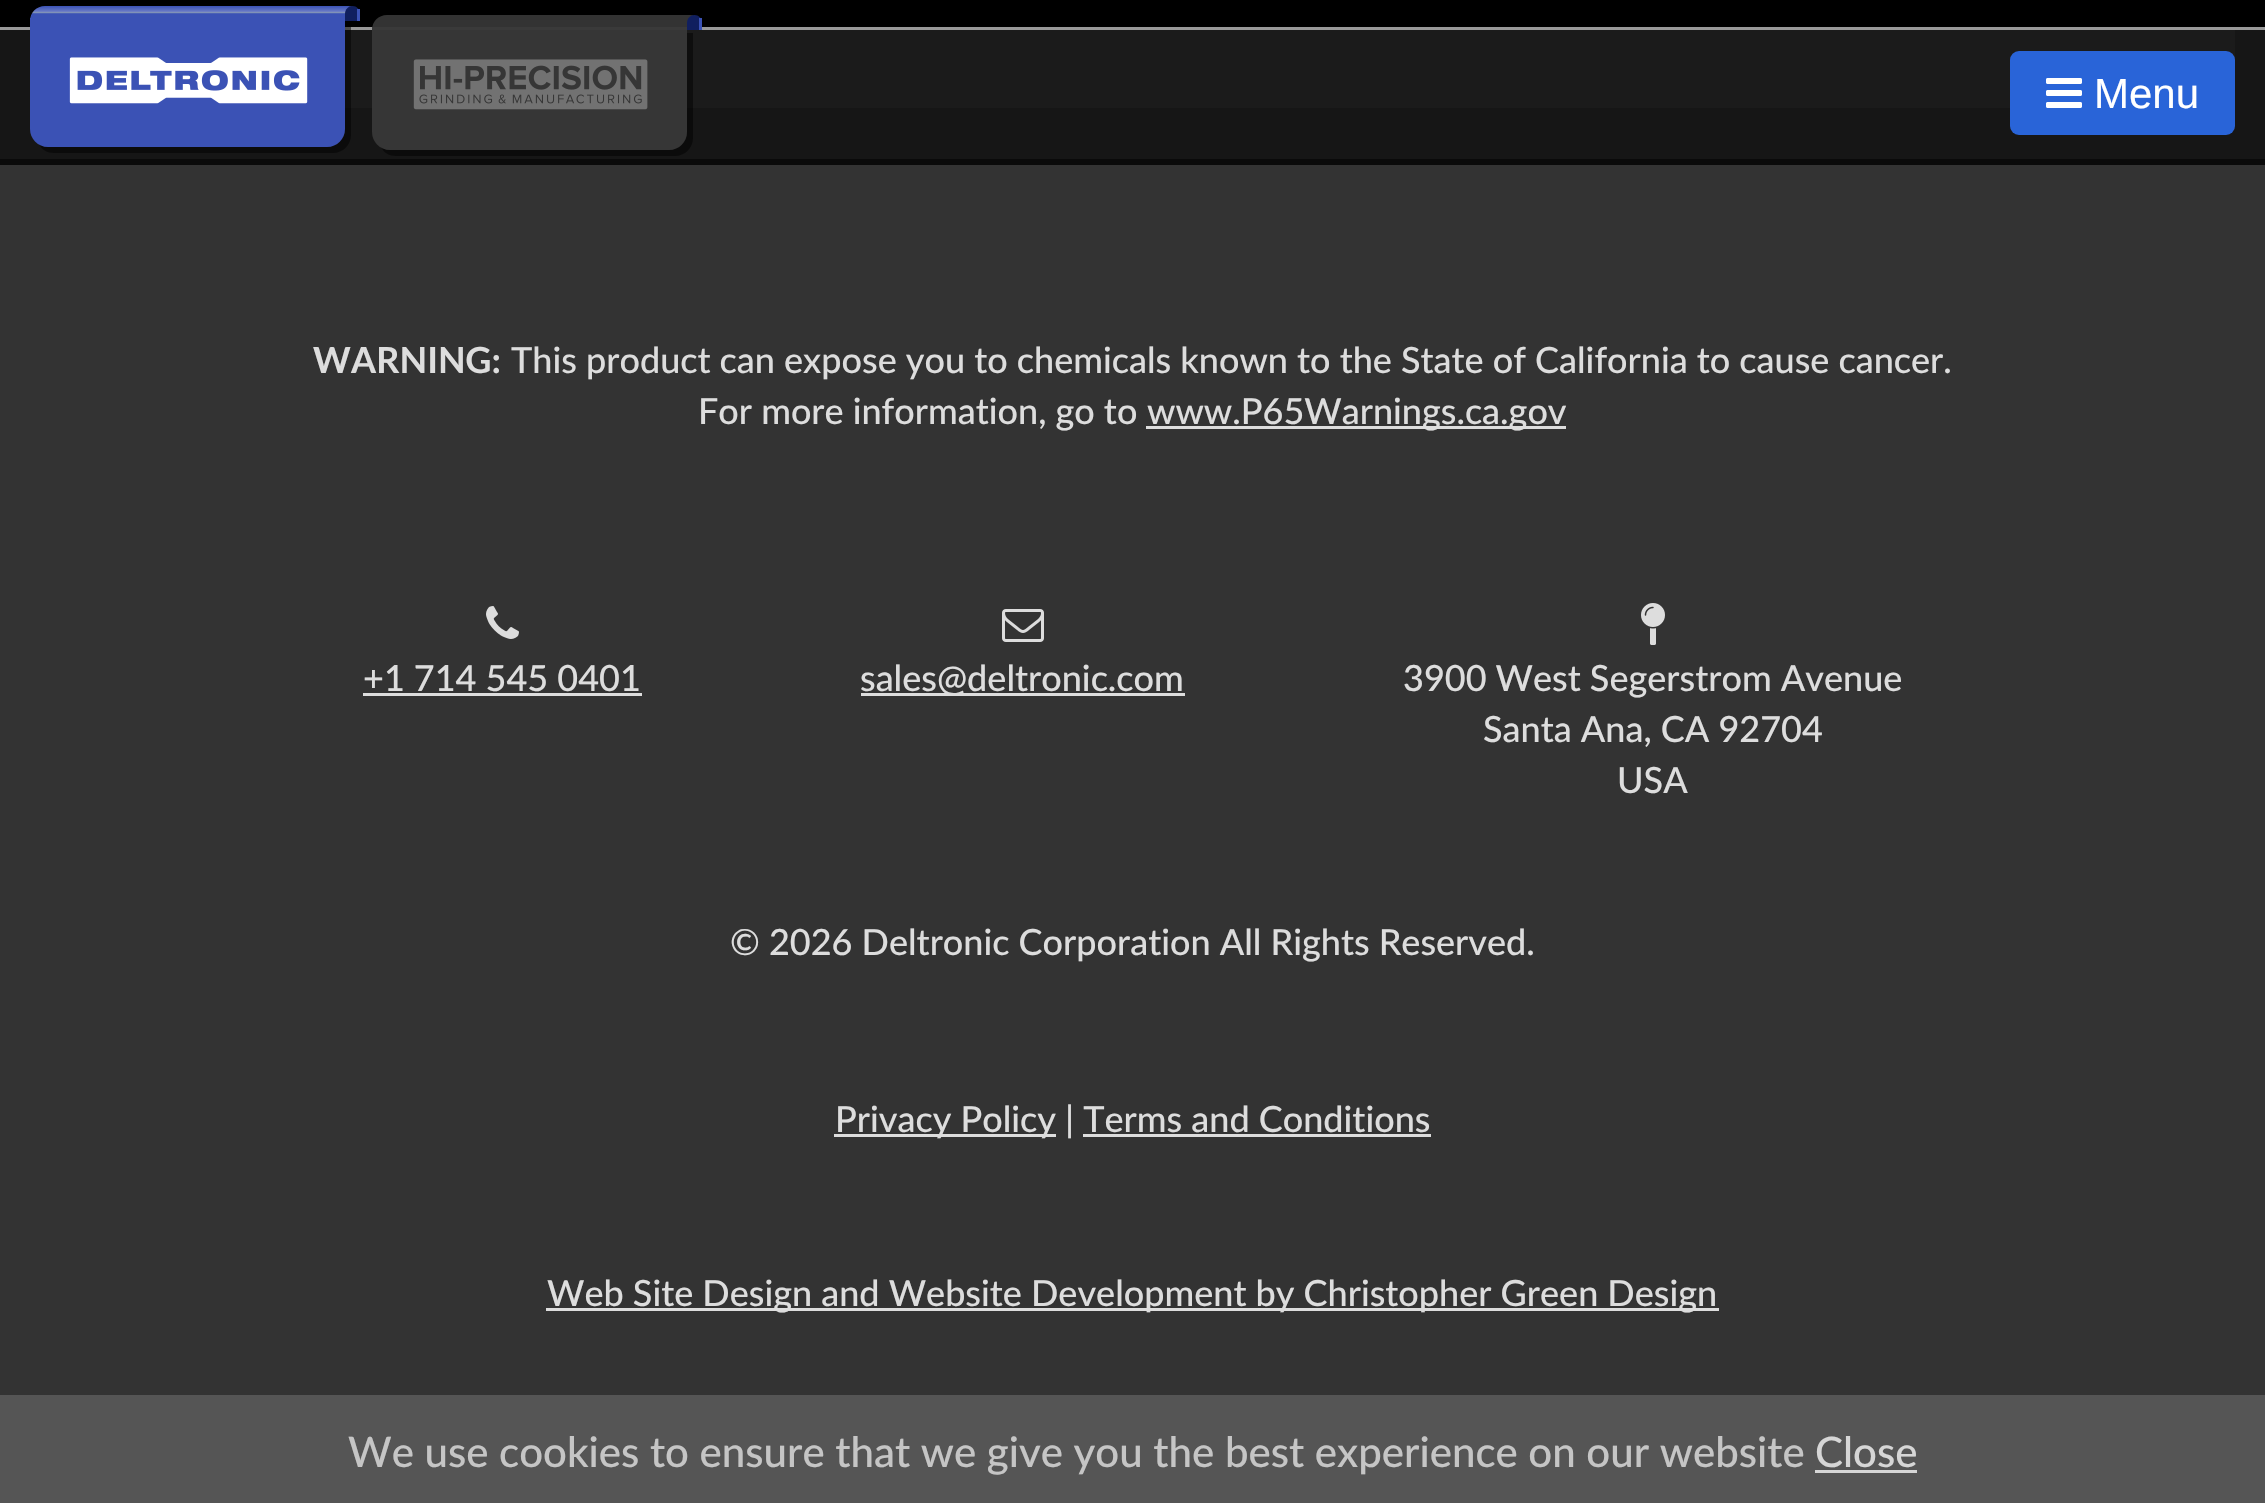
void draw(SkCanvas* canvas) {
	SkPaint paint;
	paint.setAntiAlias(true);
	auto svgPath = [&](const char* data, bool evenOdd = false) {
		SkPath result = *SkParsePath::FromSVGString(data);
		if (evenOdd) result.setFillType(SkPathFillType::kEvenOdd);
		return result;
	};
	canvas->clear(0xff333333);
	paint.setColor(0xff000000);
	canvas->drawRect(SkRect::MakeXYWH(0, 0, 2265, 27), paint);
	paint.setColor(0xff999999);
	canvas->drawRect(SkRect::MakeXYWH(0, 27, 2265, 3), paint);
	{
		const SkColor colors[] = {0xff3b52b5, 0xff687ac6, 0xff92a3b7, 0xff3b52b5, 0xff3b52b5};
		const float stops[] = {0, 0.36, 0.41, 0.52, 1};
		const SkPoint ends[] = {{195, 6}, {195, 21}};
		paint.setShader(SkGradientShader::MakeLinear(ends, colors, stops, 5, SkTileMode::kClamp));
		paint.setAlpha(255);
	}
	canvas->drawPath(svgPath("M45 6H348C354.5 6 360 11.5 360 18V21H30C30 12.5 36.5 6 45 6Z"), paint);
	paint.setShader(nullptr);
	paint.setColor(0xff101f5f);
	canvas->drawPath(svgPath("M352.5 6C356.5 6 360 9.5 360 13.5V21H345V13.5C345 9.5 348.5 6 352.5 6Z"), paint);
	paint.setColor(0xff3b52b5);
	canvas->drawRect(SkRect::MakeXYWH(357, 9, 3, 12), paint);
	paint.setColor(0xff444444);
	canvas->drawRect(SkRect::MakeXYWH(345, 30, 1890, 78), paint);
	paint.setColor(0xb50a0a0a);
	canvas->drawRect(SkRect::MakeXYWH(0, 30, 2265, 129), paint);
	paint.setColor(0x80000000);
	canvas->drawPath(svgPath("M39 144C42 150 47 153 54 153H333C343 153 351 145 351 135V24H345V129C345 139 337 147 327 147H48C45 147 41 146 39 144Z"), paint);
	paint.setColor(0xff3b52b5);
	canvas->drawPath(svgPath("M30 18H345V129C345 139 337 147 327 147H48C38 147 30 139 30 129Z"), paint);
	canvas->drawImageRect(SkImages::DeferredFromEncodedData(SkData::MakeFromFileName("img1.png")), SkRect::MakeXYWH(69, 57, 239, 47), SkSamplingOptions());
	paint.setColor(0xe6393939);
	canvas->drawPath(svgPath("M387 15H690C696.5 15 702 20.5 702 27V30H372C372 21.5 378.5 15 387 15Z"), paint);
	paint.setColor(0xff101f5f);
	canvas->drawPath(svgPath("M694.5 15C698.5 15 702 18.5 702 22.5V30H687V22.5C687 18.5 690.5 15 694.5 15Z"), paint);
	paint.setColor(0xff3b52b5);
	canvas->drawRect(SkRect::MakeXYWH(699, 18, 3, 12), paint);
	paint.setColor(0x80000000);
	canvas->drawPath(svgPath("M381 147C384 153 389 156 396 156H675C685 156 693 148 693 138V33H687V132C687 142 679 150 669 150H390C387 150 383 149 381 147Z"), paint);
	paint.setColor(0xe6393939);
	canvas->drawPath(svgPath("M372 27H687V132C687 142 679 150 669 150H390C380 150 372 142 372 132Z"), paint);
	canvas->drawImageRect(SkImages::DeferredFromEncodedData(SkData::MakeFromFileName("img2.png")), SkRect::MakeXYWH(413, 59, 235, 51), SkSamplingOptions());
	paint.setColor(0xff0a0a0a);
	canvas->drawRect(SkRect::MakeXYWH(0, 159, 2265, 6), paint);
	paint.setColor(0xff2964d8);
	canvas->drawRoundRect(SkRect::MakeXYWH(2010, 51, 225, 84), 9, 9, paint);
	canvas->drawImageRect(SkImages::DeferredFromEncodedData(SkData::MakeFromFileName("img3.png")), SkRect::MakeXYWH(2046, 78, 36, 30), SkSamplingOptions());
	SkFont f1(fontMgr->matchFamilyStyle("Liberation Sans", SkFontStyle::Normal()), 42);
	f1.setSubpixel(true);
	paint.setColor(0xffffffff);
	canvas->drawString("Menu", 2094, 108, f1, paint);
	SkFont f2(fontMgr->matchFamilyStyle("Lato", SkFontStyle::Bold()), 36);
	f2.setSubpixel(true);
	paint.setColor(0xffdddddd);
	canvas->drawString("WARNING:", 313, 373, f2, paint);
	SkFont f3(fontMgr->matchFamilyStyle("Lato", SkFontStyle(500, SkFontStyle::kNormal_Width, SkFontStyle::kUpright_Slant)), 36);
	f3.setSubpixel(true);
	canvas->drawString("This product can expose you to chemicals known to the State of California to cause cancer.", 511, 373, f3, paint);
	canvas->drawString("For more information, go to", 698, 424, f3, paint);
	canvas->drawRect(SkRect::MakeXYWH(1146, 426, 420, 3), paint);
	canvas->drawString("www.P65Warnings.ca.gov", 1147, 424, f3, paint);
	canvas->drawImageRect(SkImages::DeferredFromEncodedData(SkData::MakeFromFileName("img4.png")), SkRect::MakeXYWH(486, 606, 33, 33), SkSamplingOptions());
	canvas->drawString("+1 714 545 0401", 363, 691, f3, paint);
	canvas->drawRect(SkRect::MakeXYWH(363, 693, 279, 3), paint);
	canvas->drawImageRect(SkImages::DeferredFromEncodedData(SkData::MakeFromFileName("img5.png")), SkRect::MakeXYWH(1002, 609, 42, 33), SkSamplingOptions());
	canvas->drawRect(SkRect::MakeXYWH(861, 693, 324, 3), paint);
	canvas->drawString("sales@deltronic.com", 860, 691, f3, paint);
	canvas->drawImageRect(SkImages::DeferredFromEncodedData(SkData::MakeFromFileName("img6.png")), SkRect::MakeXYWH(1641, 603, 24, 42), SkSamplingOptions());
	canvas->drawString("3900 West Segerstrom Avenue", 1403, 691, f3, paint);
	canvas->drawString("Santa Ana, CA 92704", 1483, 742, f3, paint);
	canvas->drawString("USA", 1617, 793, f3, paint);
	canvas->drawString("© 2026 Deltronic Corporation All Rights Reserved.", 730, 955, f3, paint);
	canvas->drawRect(SkRect::MakeXYWH(834, 1134, 222, 3), paint);
	canvas->drawString("Privacy Policy | Terms and Conditions", 835, 1132, f3, paint);
	canvas->drawRect(SkRect::MakeXYWH(1083, 1134, 348, 3), paint);
	canvas->drawRect(SkRect::MakeXYWH(546, 1308, 1173, 3), paint);
	canvas->drawString("Web Site Design and Website Development by Christopher Green Design", 547, 1306, f3, paint);
	paint.setColor(0xff555555);
	canvas->drawRect(SkRect::MakeXYWH(0, 1395, 2265, 108), paint);
	SkFont f4(fontMgr->matchFamilyStyle("Lato", SkFontStyle(500, SkFontStyle::kNormal_Width, SkFontStyle::kUpright_Slant)), 42);
	f4.setSubpixel(true);
	paint.setColor(0xffc5c5c5);
	canvas->drawString("We use cookies to ensure that we give you the best experience on our website", 348, 1467, f4, paint);
	paint.setColor(0xffd6d6d6);
	canvas->drawString("Close", 1815, 1467, f4, paint);
	canvas->drawRect(SkRect::MakeXYWH(1815, 1470, 102, 3), paint);
}
